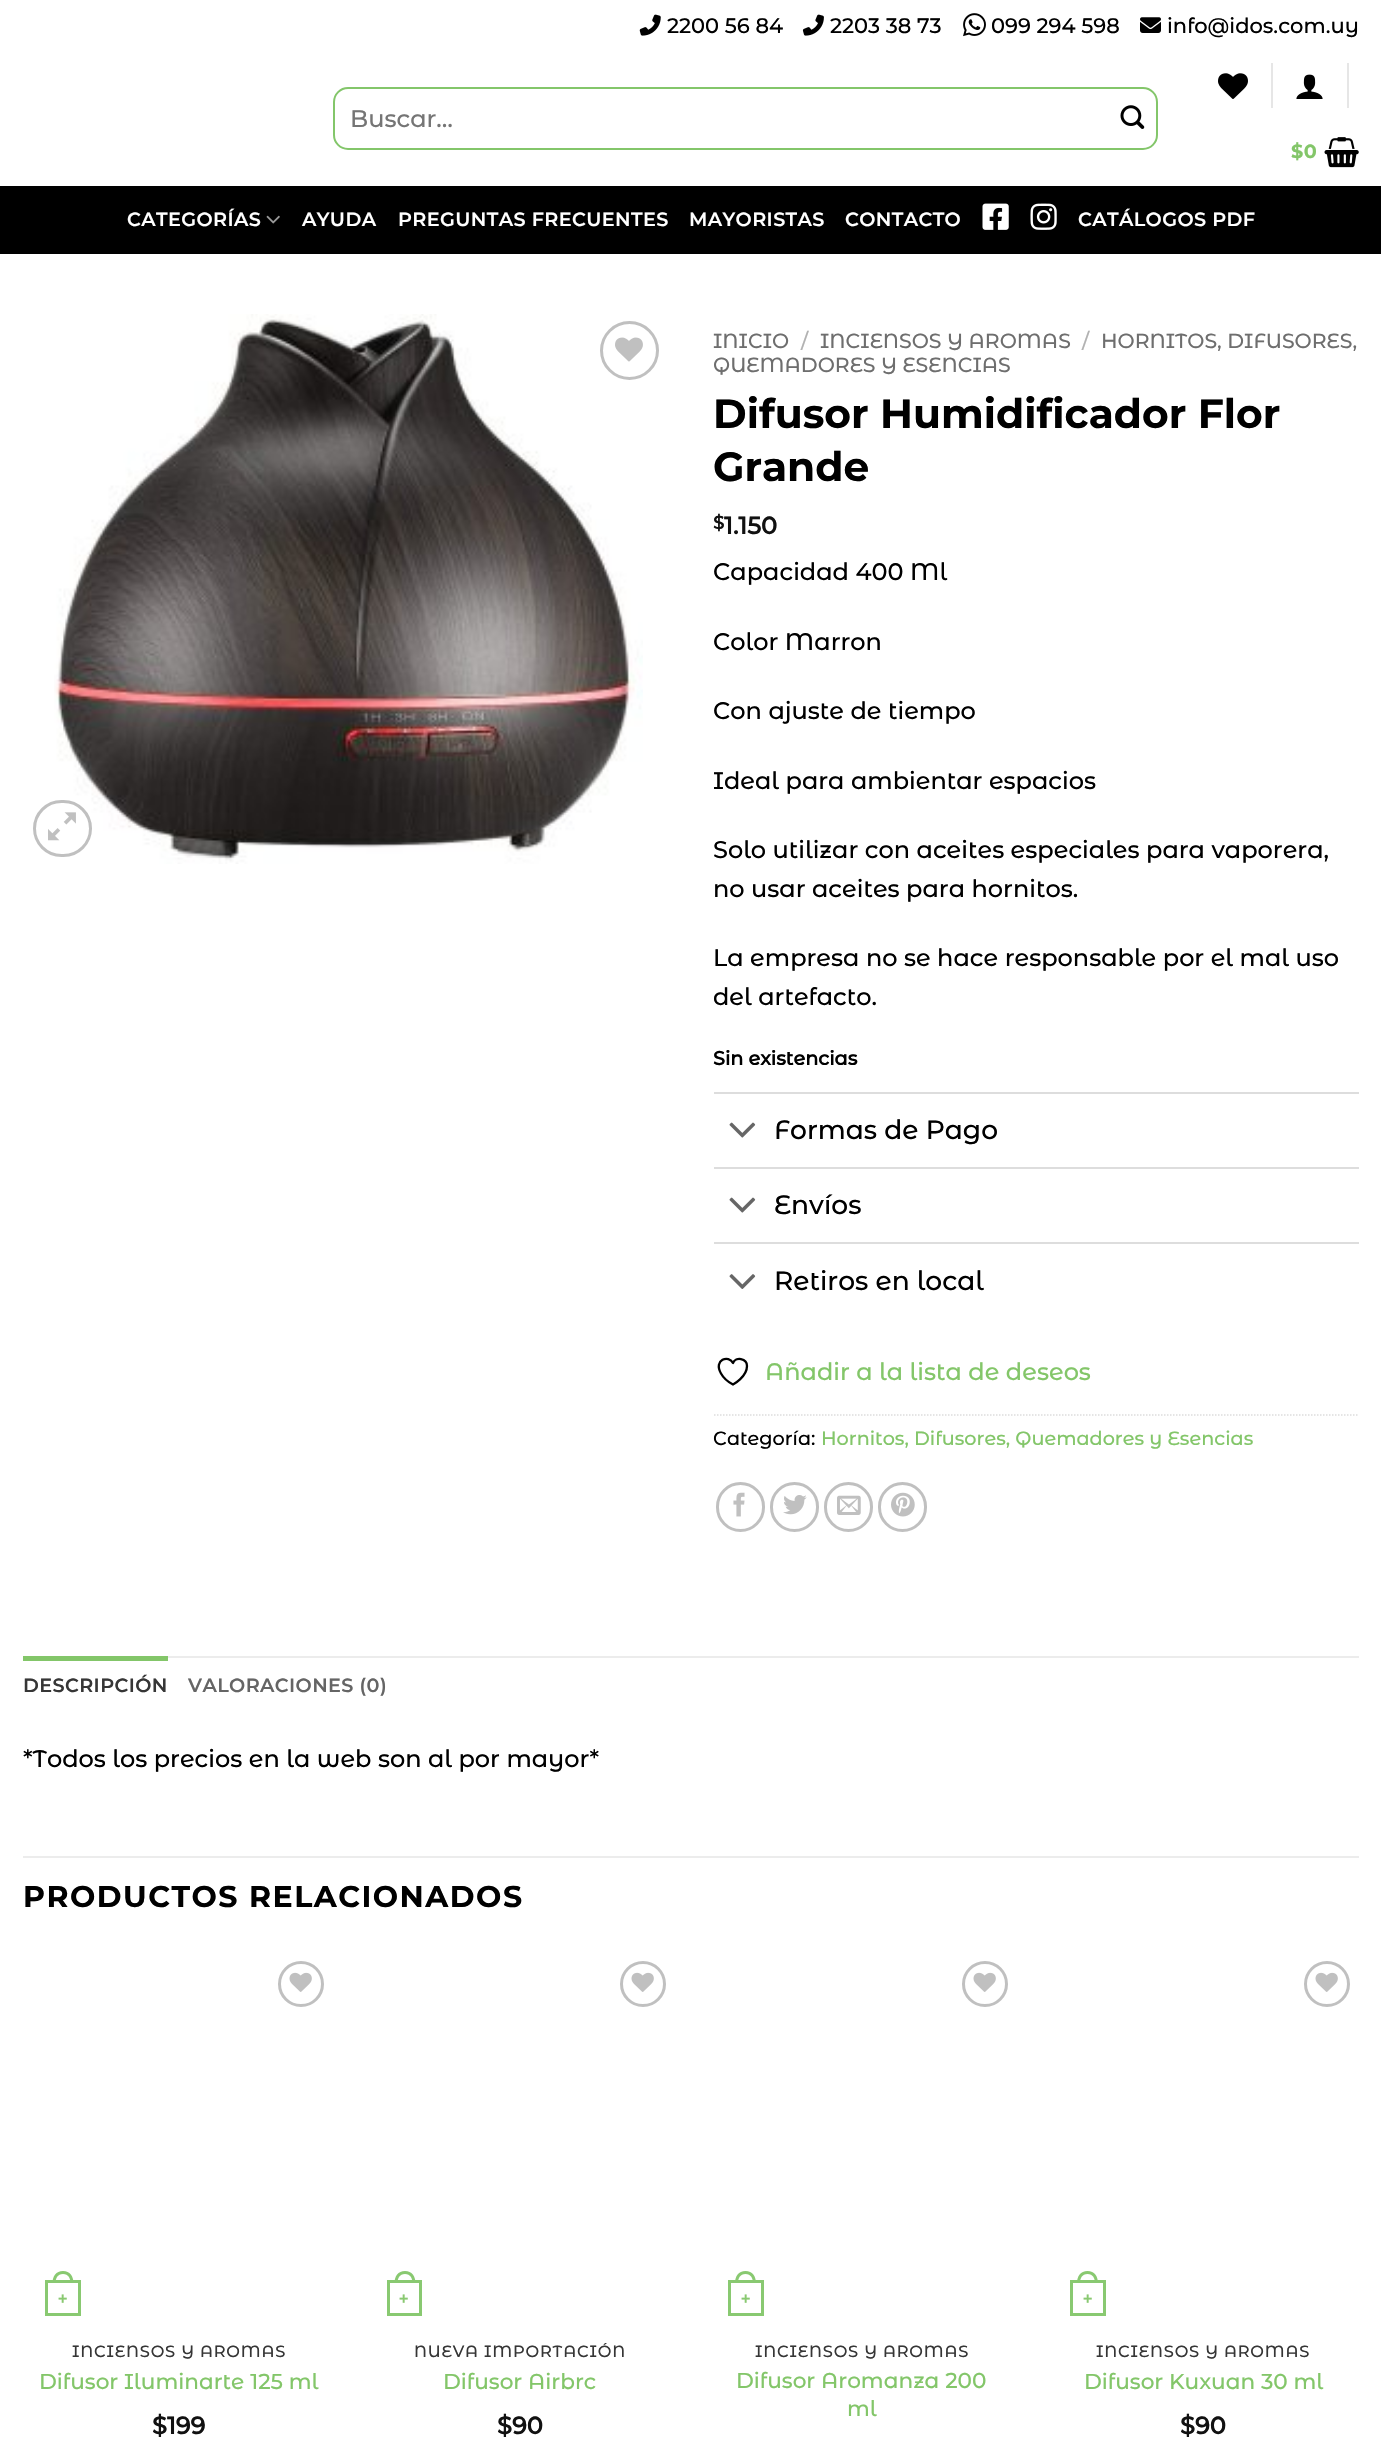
void draw(SkCanvas* canvas) {
	SkPaint paint;
	paint.setAntiAlias(true);
	auto spacedText = [&](const char* s, float x, float y, const SkFont& font, const SkPaint& ink, float letter, float word) {
		std::vector<SkGlyphID> glyphs(font.countText(s, strlen(s), SkTextEncoding::kUTF8));
		std::vector<float> xs(glyphs.size());
		font.textToGlyphs(s, strlen(s), SkTextEncoding::kUTF8, glyphs);
		font.getXPos(glyphs, xs, x);
		float extra = 0;
		for (size_t i = 0; i < glyphs.size(); i++) {
			xs[i] += extra;
			extra += letter + word * (glyphs[i] == font.unicharToGlyph(' '));
		}
		canvas->drawTextBlob(SkTextBlob::MakeFromPosHGlyphs(glyphs, xs, y, font), 0, 0, ink);
	};
	auto svgPath = [&](const char* data, bool evenOdd = false) {
		SkPath result = *SkParsePath::FromSVGString(data);
		if (evenOdd) result.setFillType(SkPathFillType::kEvenOdd);
		return result;
	};
	canvas->clear(0xffffffff);
	canvas->drawImageRect(SkImages::DeferredFromEncodedData(SkData::MakeFromFileName("img1.png")), SkRect::MakeXYWH(639, 14, 22, 22), SkSamplingOptions());
	SkFont f1(fontMgr->matchFamilyStyle("Montserrat Alternates", SkFontStyle(500, SkFontStyle::kNormal_Width, SkFontStyle::kUpright_Slant)), 21);
	f1.setSubpixel(true);
	paint.setColor(0xff000000);
	canvas->drawString("2200 56 84", 667, 33, f1, paint);
	canvas->drawImageRect(SkImages::DeferredFromEncodedData(SkData::MakeFromFileName("img2.png")), SkRect::MakeXYWH(802, 14, 22, 22), SkSamplingOptions());
	canvas->drawString("2203 38 73", 830, 33, f1, paint);
	canvas->drawImageRect(SkImages::DeferredFromEncodedData(SkData::MakeFromFileName("img3.png")), SkRect::MakeXYWH(963, 13, 23, 24), SkSamplingOptions());
	canvas->drawString("099 294 598", 991, 33, f1, paint);
	canvas->drawImageRect(SkImages::DeferredFromEncodedData(SkData::MakeFromFileName("img4.png")), SkRect::MakeXYWH(1140, 17, 21, 16), SkSamplingOptions());
	canvas->drawString("info@idos.com.uy", 1167, 33, f1, paint);
	paint.setStroke(true);
	paint.setStrokeWidth(2);
	paint.setColor(0xff83c66a);
	canvas->drawRoundRect(SkRect::MakeXYWH(334, 88, 823, 61), 14, 14, paint);
	SkFont f2(fontMgr->matchFamilyStyle("Montserrat Alternates", SkFontStyle(500, SkFontStyle::kNormal_Width, SkFontStyle::kUpright_Slant)), 24);
	f2.setSubpixel(true);
	paint.setStroke(false);
	paint.setColor(0xff757575);
	canvas->drawString("Buscar…", 350, 127, f2, paint);
	canvas->drawImageRect(SkImages::DeferredFromEncodedData(SkData::MakeFromFileName("img5.png")), SkRect::MakeXYWH(1120, 105, 25, 24), SkSamplingOptions());
	canvas->drawImageRect(SkImages::DeferredFromEncodedData(SkData::MakeFromFileName("img6.png")), SkRect::MakeXYWH(1218, 73, 30, 26), SkSamplingOptions());
	paint.setColor(0xffe6e6e6);
	canvas->drawRect(SkRect::MakeXYWH(1271, 63, 2, 45), paint);
	canvas->drawImageRect(SkImages::DeferredFromEncodedData(SkData::MakeFromFileName("img7.png")), SkRect::MakeXYWH(1296, 74, 27, 25), SkSamplingOptions());
	canvas->drawRect(SkRect::MakeXYWH(1347, 63, 2, 45), paint);
	SkFont f3(fontMgr->matchFamilyStyle("Montserrat", SkFontStyle::Bold()), 19.2);
	f3.setSubpixel(true);
	paint.setColor(0xff83c669);
	spacedText("$0", 1291, 158, f3, paint, 0.4, 0);
	canvas->drawImageRect(SkImages::DeferredFromEncodedData(SkData::MakeFromFileName("img8.png")), SkRect::MakeXYWH(1324, 137, 35, 31), SkSamplingOptions());
	paint.setColor(0xff000000);
	canvas->drawRect(SkRect::MakeXYWH(0, 186, 1381, 68), paint);
	SkFont f4(fontMgr->matchFamilyStyle("Montserrat", SkFontStyle(600, SkFontStyle::kNormal_Width, SkFontStyle::kUpright_Slant)), 19.2);
	f4.setSubpixel(true);
	paint.setColor(0xffffffff);
	spacedText("CATEGORÍAS", 127, 226, f4, paint, 0.4, 0);
	canvas->drawImageRect(SkImages::DeferredFromEncodedData(SkData::MakeFromFileName("img9.png")), SkRect::MakeXYWH(266, 215, 14, 9), SkSamplingOptions());
	spacedText("AYUDA", 302, 226, f4, paint, 0.4, 0);
	spacedText("PREGUNTAS FRECUENTES", 398, 226, f4, paint, 0.4, 0);
	spacedText("MAYORISTAS", 689, 226, f4, paint, 0.4, 0);
	spacedText("CONTACTO", 845, 226, f4, paint, 0.4, 0);
	canvas->drawImageRect(SkImages::DeferredFromEncodedData(SkData::MakeFromFileName("img10.png")), SkRect::MakeXYWH(982, 203, 27, 27), SkSamplingOptions());
	canvas->drawImageRect(SkImages::DeferredFromEncodedData(SkData::MakeFromFileName("img11.png")), SkRect::MakeXYWH(1030, 203, 27, 27), SkSamplingOptions());
	spacedText("CATÁLOGOS PDF", 1078, 226, f4, paint, 0.4, 0);
	canvas->drawImageRect(SkImages::DeferredFromEncodedData(SkData::MakeFromFileName("img12.png")), SkRect::MakeXYWH(54, 314, 589, 550), SkSamplingOptions());
	paint.setStroke(true);
	paint.setStrokeWidth(3);
	paint.setColor(0xffc0c0c0);
	canvas->drawCircle(629.5, 350.5, 28, paint);
	canvas->drawImageRect(SkImages::DeferredFromEncodedData(SkData::MakeFromFileName("img13.png")), SkRect::MakeXYWH(615, 337, 28, 25), SkSamplingOptions());
	canvas->drawRoundRect(SkRect::MakeXYWH(34.5, 801.5, 56, 54), 27, 27, paint);
	canvas->drawImageRect(SkImages::DeferredFromEncodedData(SkData::MakeFromFileName("img14.png")), SkRect::MakeXYWH(48, 812, 28, 29), SkSamplingOptions());
	SkFont f5(fontMgr->matchFamilyStyle("Montserrat Alternates", SkFontStyle(500, SkFontStyle::kNormal_Width, SkFontStyle::kUpright_Slant)), 20.4);
	f5.setSubpixel(true);
	paint.setStroke(false);
	paint.setColor(0xff6e6e6e);
	canvas->drawString("INICIO", 713, 348, f5, paint);
	paint.setColor(0xffb2b2b2);
	canvas->drawString("/", 801, 348, f5, paint);
	paint.setColor(0xff6e6e6e);
	canvas->drawString("INCIENSOS Y AROMAS", 820, 348, f5, paint);
	paint.setColor(0xffb2b2b2);
	canvas->drawString("/", 1082, 348, f5, paint);
	paint.setColor(0xff6e6e6e);
	canvas->drawString("HORNITOS, DIFUSORES,", 1101, 348, f5, paint);
	canvas->drawString("QUEMADORES Y ESENCIAS", 713, 372, f5, paint);
	SkFont f6(fontMgr->matchFamilyStyle("Montserrat", SkFontStyle::Bold()), 40.75);
	f6.setSubpixel(true);
	paint.setColor(0xff000000);
	canvas->drawString("Difusor Humidificador Flor", 713, 428, f6, paint);
	canvas->drawString("Grande", 713, 481, f6, paint);
	SkFont f7(fontMgr->matchFamilyStyle("Montserrat Alternates", SkFontStyle::Bold()), 18);
	f7.setSubpixel(true);
	paint.setColor(0xff111111);
	canvas->drawString("$", 713, 529, f7, paint);
	SkFont f8(fontMgr->matchFamilyStyle("Montserrat Alternates", SkFontStyle::Bold()), 24);
	f8.setSubpixel(true);
	canvas->drawString("1.150", 724, 534, f8, paint);
	paint.setColor(0xff000000);
	canvas->drawString("Capacidad 400 Ml", 713, 580, f2, paint);
	canvas->drawString("Color Marron", 713, 650, f2, paint);
	canvas->drawString("Con ajuste de tiempo", 713, 719, f2, paint);
	canvas->drawString("Ideal para ambientar espacios", 713, 789, f2, paint);
	canvas->drawString("Solo utilizar con aceites especiales para vaporera,", 713, 858, f2, paint);
	canvas->drawString("no usar aceites para hornitos.", 713, 897, f2, paint);
	canvas->drawString("La empresa no se hace responsable por el mal uso", 713, 966, f2, paint);
	canvas->drawString("del artefacto.", 713, 1005, f2, paint);
	SkFont f9(fontMgr->matchFamilyStyle("Montserrat Alternates", SkFontStyle::Bold()), 19.2);
	f9.setSubpixel(true);
	canvas->drawString("Sin existencias", 713, 1065, f9, paint);
	paint.setColor(0xffdddddd);
	canvas->drawRect(SkRect::MakeXYWH(714, 1092, 645, 2), paint);
	canvas->drawImageRect(SkImages::DeferredFromEncodedData(SkData::MakeFromFileName("img15.png")), SkRect::MakeXYWH(729, 1122, 27, 16), SkSamplingOptions());
	SkFont f10(fontMgr->matchFamilyStyle("Montserrat Alternates", SkFontStyle(500, SkFontStyle::kNormal_Width, SkFontStyle::kUpright_Slant)), 26.5);
	f10.setSubpixel(true);
	paint.setColor(0xff000000);
	canvas->drawString("Formas de Pago", 774, 1139, f10, paint);
	paint.setColor(0xffdddddd);
	canvas->drawRect(SkRect::MakeXYWH(714, 1167, 645, 2), paint);
	canvas->drawImageRect(SkImages::DeferredFromEncodedData(SkData::MakeFromFileName("img15.png")), SkRect::MakeXYWH(729, 1197, 27, 16), SkSamplingOptions());
	paint.setColor(0xff000000);
	canvas->drawString("Envíos", 774, 1214, f10, paint);
	paint.setColor(0xffdddddd);
	canvas->drawRect(SkRect::MakeXYWH(714, 1242, 645, 2), paint);
	canvas->drawImageRect(SkImages::DeferredFromEncodedData(SkData::MakeFromFileName("img16.png")), SkRect::MakeXYWH(729, 1274, 27, 15), SkSamplingOptions());
	paint.setColor(0xff000000);
	canvas->drawString("Retiros en local", 774, 1290, f10, paint);
	paint.setColor(0xff83c669);
	canvas->drawString("Añadir a la lista de deseos", 765, 1380, f2, paint);
	paint.setStroke(true);
	paint.setStrokeWidth(2.3);
	paint.setStrokeCap(SkPaint::kRound_Cap);
	paint.setStrokeJoin(SkPaint::kRound_Join);
	paint.setColor(0xff000000);
	canvas->drawPath(svgPath("M747 1366C747 1358 735.5 1356.5 733 1363C729 1354.5 713 1359.5 721 1373.5C723.5 1378 728 1382 733 1384.5C733 1384.5 747 1377 747 1366Z"), paint);
	paint.setStrokeWidth(1.5);
	paint.setStrokeCap(SkPaint::kButt_Cap);
	paint.setStrokeJoin(SkPaint::kMiter_Join);
	paint.setColor(0xffdddddd);
	paint.setPathEffect(SkDashPathEffect::Make({{1.5f, 1.5f}}, 0));
	canvas->drawPath(svgPath("M714 1415H1359"), paint);
	paint.setPathEffect(nullptr);
	SkFont f11(fontMgr->matchFamilyStyle("Montserrat Alternates", SkFontStyle(500, SkFontStyle::kNormal_Width, SkFontStyle::kUpright_Slant)), 19.2);
	f11.setSubpixel(true);
	paint.setStroke(false);
	paint.setColor(0xff000000);
	canvas->drawString("Categoría:", 713, 1445, f11, paint);
	paint.setColor(0xff83c669);
	canvas->drawString("Hornitos, Difusores, Quemadores y Esencias", 821, 1445, f11, paint);
	paint.setStroke(true);
	paint.setStrokeWidth(3);
	paint.setColor(0xffc0c0c0);
	canvas->drawRoundRect(SkRect::MakeXYWH(717.5, 1483.5, 46, 47), 23, 23, paint);
	canvas->drawImageRect(SkImages::DeferredFromEncodedData(SkData::MakeFromFileName("img17.png")), SkRect::MakeXYWH(733, 1492, 12, 25), SkSamplingOptions());
	canvas->drawRoundRect(SkRect::MakeXYWH(771.5, 1483.5, 46, 47), 23, 23, paint);
	canvas->drawImageRect(SkImages::DeferredFromEncodedData(SkData::MakeFromFileName("img18.png")), SkRect::MakeXYWH(783, 1495, 24, 20), SkSamplingOptions());
	canvas->drawRoundRect(SkRect::MakeXYWH(825.5, 1483.5, 46, 47), 23, 23, paint);
	canvas->drawImageRect(SkImages::DeferredFromEncodedData(SkData::MakeFromFileName("img19.png")), SkRect::MakeXYWH(837, 1495, 24, 20), SkSamplingOptions());
	canvas->drawRoundRect(SkRect::MakeXYWH(879.5, 1483.5, 46, 47), 23, 23, paint);
	canvas->drawImageRect(SkImages::DeferredFromEncodedData(SkData::MakeFromFileName("img20.png")), SkRect::MakeXYWH(891, 1492, 24, 25), SkSamplingOptions());
	paint.setStroke(false);
	paint.setColor(0xffececec);
	canvas->drawRect(SkRect::MakeXYWH(168, 1656, 1191, 2), paint);
	paint.setColor(0xff83c669);
	canvas->drawRect(SkRect::MakeXYWH(23, 1656, 145, 5), paint);
	paint.setColor(0xff363636);
	spacedText("DESCRIPCIÓN", 23, 1692, f4, paint, 0.4, 0);
	paint.setColor(0xff656565);
	spacedText("VALORACIONES (0)", 188, 1692, f4, paint, 0.4, 0);
	paint.setColor(0xff000000);
	canvas->drawString("*Todos los precios en la web son al por mayor*", 23, 1767, f2, paint);
	paint.setColor(0xffececec);
	canvas->drawRect(SkRect::MakeXYWH(23, 1856, 1336, 2), paint);
	SkFont f12(fontMgr->matchFamilyStyle("Montserrat", SkFontStyle::Bold()), 30);
	f12.setSubpixel(true);
	paint.setColor(0xff000000);
	spacedText("PRODUCTOS RELACIONADOS", 23, 1907, f12, paint, 1.5, 0);
	paint.setStroke(true);
	paint.setColor(0xffc0c0c0);
	canvas->drawCircle(301, 1984, 21.5, paint);
	canvas->drawImageRect(SkImages::DeferredFromEncodedData(SkData::MakeFromFileName("img21.png")), SkRect::MakeXYWH(289, 1972, 23, 20), SkSamplingOptions());
	paint.setColor(0xff89c971);
	canvas->drawRect(SkRect::MakeXYWH(46.5, 2281.5, 33, 33), paint);
	paint.setStroke(false);
	canvas->drawPath(svgPath("M63 2271C70 2271 73.5 2276.5 73.5 2283H52.5C52.5 2276.5 56 2271 63 2271ZM63 2274C68.5 2274 70.5 2278.5 70.5 2283H55.5C55.5 2278.5 57.5 2274 63 2274Z", true), paint);
	SkFont f13(fontMgr->matchFamilyStyle("Liberation Sans", SkFontStyle::Bold()), 16);
	f13.setSubpixel(true);
	canvas->drawString("+", 58, 2304, f13, paint);
	SkFont f14(fontMgr->matchFamilyStyle("Montserrat Alternates", SkFontStyle(500, SkFontStyle::kNormal_Width, SkFontStyle::kUpright_Slant)), 16.25);
	f14.setSubpixel(true);
	paint.setColor(0xff363636);
	spacedText("INCIENSOS Y AROMAS", 72, 2357, f14, paint, 0.8, 0);
	SkFont f15(fontMgr->matchFamilyStyle("Montserrat Alternates", SkFontStyle(500, SkFontStyle::kNormal_Width, SkFontStyle::kUpright_Slant)), 21.6);
	f15.setSubpixel(true);
	paint.setColor(0xff83c669);
	canvas->drawString("Difusor Iluminarte 125 ml", 39, 2389, f15, paint);
	paint.setColor(0xff111111);
	canvas->drawString("$199", 152, 2434, f8, paint);
	paint.setStroke(true);
	paint.setColor(0xffc0c0c0);
	canvas->drawCircle(643, 1984, 21.5, paint);
	canvas->drawImageRect(SkImages::DeferredFromEncodedData(SkData::MakeFromFileName("img21.png")), SkRect::MakeXYWH(631, 1972, 23, 20), SkSamplingOptions());
	paint.setColor(0xff89c971);
	canvas->drawRect(SkRect::MakeXYWH(388.5, 2281.5, 32, 33), paint);
	paint.setStroke(false);
	canvas->drawPath(svgPath("M405 2271C412 2271 415.5 2276.5 415.5 2283H394.5C394.5 2276.5 398 2271 405 2271ZM405 2274C410.5 2274 412.5 2278.5 412.5 2283H397.5C397.5 2278.5 399.5 2274 405 2274Z", true), paint);
	canvas->drawString("+", 399, 2304, f13, paint);
	canvas->save();
	canvas->clipRect(SkRect::MakeXYWH(380, 2343, 282, 20));
	paint.setColor(0xff363636);
	spacedText("NUEVA IMPORTACIÓN", 414, 2357, f14, paint, 0.8, 0);
	canvas->restore();
	paint.setColor(0xff83c669);
	canvas->drawString("Difusor Airbrc", 443, 2389, f15, paint);
	paint.setColor(0xff111111);
	canvas->drawString("$90", 497, 2434, f8, paint);
	paint.setStroke(true);
	paint.setColor(0xffc0c0c0);
	canvas->drawCircle(985, 1984, 21.5, paint);
	canvas->drawImageRect(SkImages::DeferredFromEncodedData(SkData::MakeFromFileName("img21.png")), SkRect::MakeXYWH(973, 1972, 23, 20), SkSamplingOptions());
	paint.setColor(0xff89c971);
	canvas->drawRect(SkRect::MakeXYWH(729.5, 2281.5, 33, 33), paint);
	paint.setStroke(false);
	canvas->drawPath(svgPath("M745.5 2271C752.5 2271 756 2276.5 756 2283H735C735 2276.5 738.5 2271 745.5 2271ZM745.5 2274C751 2274 753 2278.5 753 2283H738C738 2278.5 740 2274 745.5 2274Z", true), paint);
	canvas->drawString("+", 741, 2304, f13, paint);
	paint.setColor(0xff363636);
	spacedText("INCIENSOS Y AROMAS", 755, 2357, f14, paint, 0.8, 0);
	paint.setColor(0xff83c669);
	canvas->drawString("Difusor Aromanza 200", 736, 2388, f15, paint);
	canvas->drawString("ml", 847, 2416, f15, paint);
	paint.setStroke(true);
	paint.setColor(0xffc0c0c0);
	canvas->drawCircle(1327, 1984, 21.5, paint);
	canvas->drawImageRect(SkImages::DeferredFromEncodedData(SkData::MakeFromFileName("img21.png")), SkRect::MakeXYWH(1315, 1972, 23, 20), SkSamplingOptions());
	paint.setColor(0xff89c971);
	canvas->drawRect(SkRect::MakeXYWH(1071.5, 2281.5, 33, 33), paint);
	paint.setStroke(false);
	canvas->drawPath(svgPath("M1087.5 2271C1094.5 2271 1098 2276.5 1098 2283H1077C1077 2276.5 1080.5 2271 1087.5 2271ZM1087.5 2274C1093 2274 1095 2278.5 1095 2283H1080C1080 2278.5 1082 2274 1087.5 2274Z", true), paint);
	canvas->drawString("+", 1083, 2304, f13, paint);
	paint.setColor(0xff363636);
	spacedText("INCIENSOS Y AROMAS", 1096, 2357, f14, paint, 0.8, 0);
	paint.setColor(0xff83c669);
	canvas->drawString("Difusor Kuxuan 30 ml", 1084, 2389, f15, paint);
	paint.setColor(0xff111111);
	canvas->drawString("$90", 1180, 2434, f8, paint);
}
